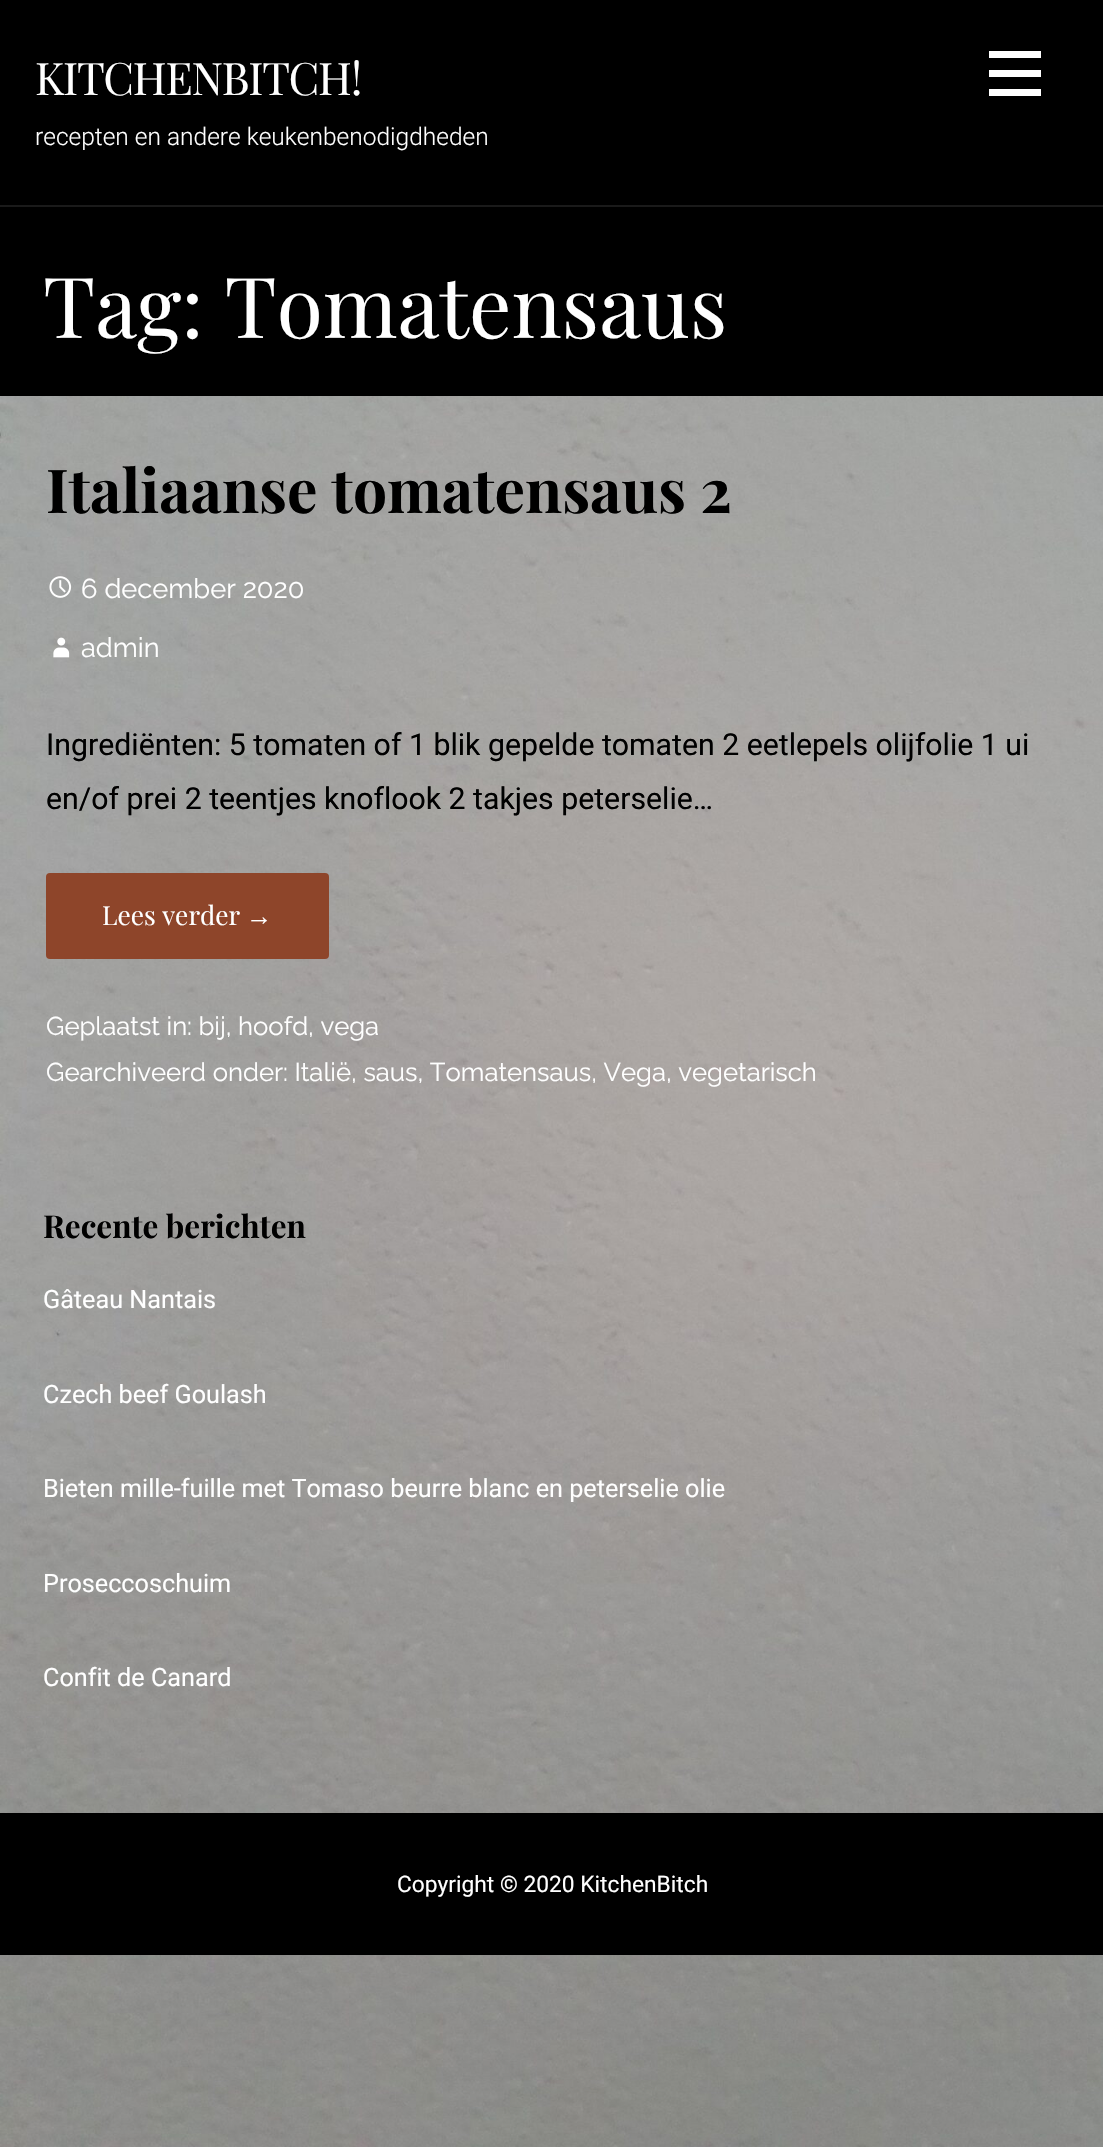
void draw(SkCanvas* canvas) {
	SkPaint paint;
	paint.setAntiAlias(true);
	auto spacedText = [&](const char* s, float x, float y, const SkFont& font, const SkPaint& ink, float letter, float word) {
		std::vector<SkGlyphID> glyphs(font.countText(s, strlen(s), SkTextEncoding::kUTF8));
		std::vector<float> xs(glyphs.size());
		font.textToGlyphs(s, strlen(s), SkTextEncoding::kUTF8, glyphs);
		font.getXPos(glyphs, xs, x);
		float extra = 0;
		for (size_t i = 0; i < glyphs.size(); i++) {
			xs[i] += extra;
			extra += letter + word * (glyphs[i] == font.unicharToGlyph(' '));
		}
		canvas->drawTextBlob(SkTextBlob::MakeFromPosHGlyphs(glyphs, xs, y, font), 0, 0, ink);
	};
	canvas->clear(0xffffffff);
	canvas->drawImageRect(SkImages::DeferredFromEncodedData(SkData::MakeFromFileName("img1.png")), SkRect::MakeXYWH(0, 396, 1103, 1751), SkSamplingOptions());
	paint.setColor(0xff000000);
	canvas->drawRect(SkRect::MakeXYWH(0, 0, 1103, 396), paint);
	paint.setColor(0xff1a1a1a);
	canvas->drawRect(SkRect::MakeXYWH(0, 205, 1103, 2), paint);
	SkFont f1(fontMgr->matchFamilyStyle("Playfair Display", SkFontStyle::Normal()), 44.75);
	f1.setSubpixel(true);
	paint.setColor(0xffffffff);
	spacedText("KITCHENBITCH!", 35, 95, f1, paint, -1.3, 0);
	SkFont f2(fontMgr->matchFamilyStyle("Roboto", SkFontStyle(300, SkFontStyle::kNormal_Width, SkFontStyle::kUpright_Slant)), 24.5);
	f2.setSubpixel(true);
	canvas->drawString("recepten en andere keukenbenodigdheden", 35, 145, f2, paint);
	canvas->drawRect(SkRect::MakeXYWH(989, 51, 52, 7), paint);
	canvas->drawRect(SkRect::MakeXYWH(989, 70, 52, 7), paint);
	canvas->drawRect(SkRect::MakeXYWH(989, 89, 52, 7), paint);
	SkFont f3(fontMgr->matchFamilyStyle("Playfair Display", SkFontStyle::Normal()), 84);
	f3.setSubpixel(true);
	canvas->drawString("Tag: Tomatensaus", 43, 338, f3, paint);
	SkFont f4(fontMgr->matchFamilyStyle("Playfair Display", SkFontStyle::Bold()), 60.5);
	f4.setSubpixel(true);
	paint.setColor(0xff000000);
	canvas->drawString("Italiaanse tomatensaus 2", 46, 513, f4, paint);
	canvas->drawImageRect(SkImages::DeferredFromEncodedData(SkData::MakeFromFileName("img2.png")), SkRect::MakeXYWH(49, 576, 23, 22), SkSamplingOptions());
	SkFont f5(fontMgr->matchFamilyStyle("Raleway", SkFontStyle::Normal()), 27.25);
	f5.setSubpixel(true);
	paint.setColor(0xffffffff);
	canvas->drawString("6 december 2020", 81, 598, f5, paint);
	canvas->drawImageRect(SkImages::DeferredFromEncodedData(SkData::MakeFromFileName("img3.png")), SkRect::MakeXYWH(53, 637, 17, 21), SkSamplingOptions());
	canvas->drawString("admin", 81, 657, f5, paint);
	SkFont f6(fontMgr->matchFamilyStyle("Roboto", SkFontStyle::Normal()), 30.25);
	f6.setSubpixel(true);
	paint.setColor(0xff000000);
	canvas->drawString("Ingrediënten: 5 tomaten of 1 blik gepelde tomaten 2 eetlepels olijfolie 1 ui", 46, 755, f6, paint);
	canvas->drawString("en/of prei 2 teentjes knoflook 2 takjes peterselie…", 46, 809, f6, paint);
	paint.setColor(0xff8e452a);
	canvas->drawRoundRect(SkRect::MakeXYWH(46, 873, 283, 86), 4, 4, paint);
	SkFont f7(fontMgr->matchFamilyStyle("Playfair Display", SkFontStyle::Normal()), 26.25);
	f7.setSubpixel(true);
	paint.setColor(0xffffffff);
	canvas->drawString("Lees verder", 102, 925, f7, paint);
	SkFont f8(fontMgr->matchFamilyStyle("Liberation Sans", SkFontStyle::Normal()), 26.25);
	f8.setSubpixel(true);
	canvas->drawString("→", 246, 925, f8, paint);
	SkFont f9(fontMgr->matchFamilyStyle("Raleway", SkFontStyle::Normal()), 25.7);
	f9.setSubpixel(true);
	canvas->drawString("Geplaatst in: bij, hoofd, vega", 46, 1035, f9, paint);
	canvas->drawString("Gearchiveerd onder: Italië, saus, Tomatensaus, Vega, vegetarisch", 46, 1081, f9, paint);
	SkFont f10(fontMgr->matchFamilyStyle("Playfair Display", SkFontStyle::Bold()), 31.5);
	f10.setSubpixel(true);
	paint.setColor(0xff000000);
	canvas->drawString("Recente berichten", 43, 1238, f10, paint);
	SkFont f11(fontMgr->matchFamilyStyle("Roboto", SkFontStyle::Normal()), 25.2);
	f11.setSubpixel(true);
	paint.setColor(0xffffffff);
	canvas->drawString("Gâteau Nantais", 43, 1308, f11, paint);
	canvas->drawString("Czech beef Goulash", 43, 1403, f11, paint);
	canvas->drawString("Bieten mille-fuille met Tomaso beurre blanc en peterselie olie", 43, 1497, f11, paint);
	canvas->drawString("Proseccoschuim", 43, 1592, f11, paint);
	canvas->drawString("Confit de Canard", 43, 1686, f11, paint);
	paint.setColor(0xff000000);
	canvas->drawRect(SkRect::MakeXYWH(0, 1813, 1103, 142), paint);
	SkFont f12(fontMgr->matchFamilyStyle("Roboto", SkFontStyle::Normal()), 22.75);
	f12.setSubpixel(true);
	paint.setColor(0xffffffff);
	canvas->drawString("Copyright © 2020 KitchenBitch", 397, 1892, f12, paint);
}
